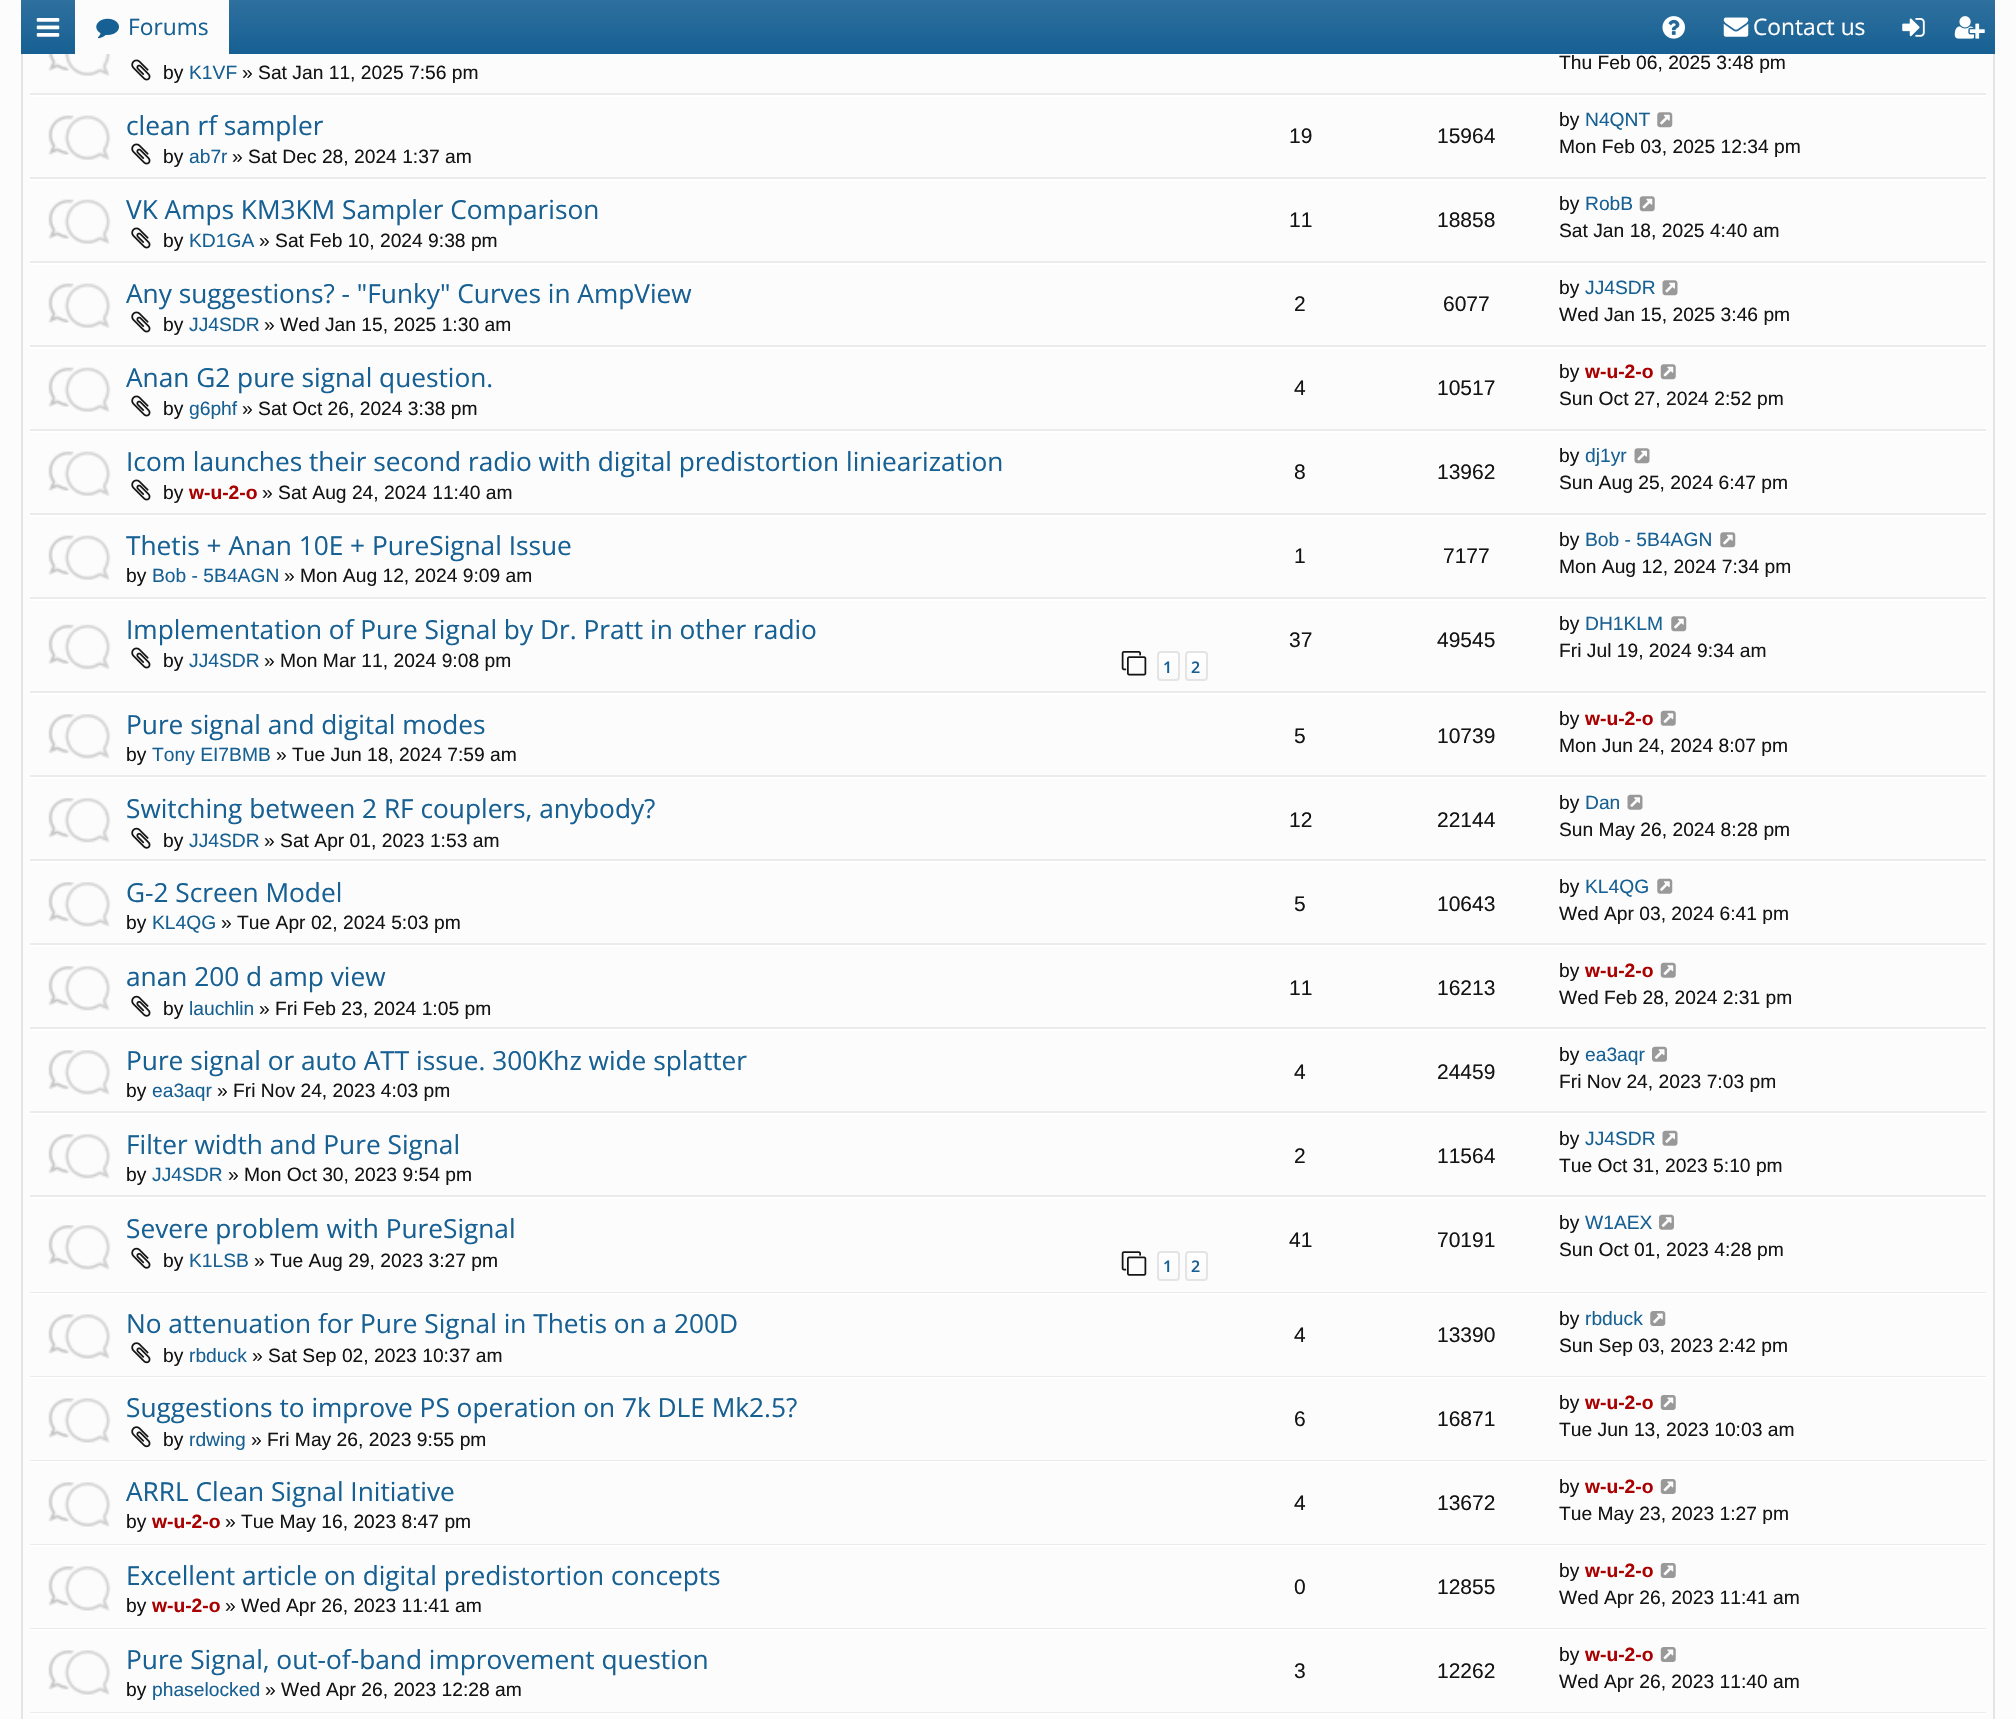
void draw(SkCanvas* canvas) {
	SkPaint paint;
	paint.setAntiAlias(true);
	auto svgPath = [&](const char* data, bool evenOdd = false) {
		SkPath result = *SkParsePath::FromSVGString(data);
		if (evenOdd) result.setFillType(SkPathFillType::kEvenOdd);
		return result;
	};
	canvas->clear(0xfffcfcfc);
	paint.setStroke(true);
	paint.setStrokeWidth(2);
	paint.setColor(0xffe4e4e4);
	canvas->drawRect(SkRect::MakeXYWH(22, -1, 1972, 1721), paint);
	paint.setStroke(false);
	{
		const SkColor colors[] = {0xff2e709e, 0xff176093};
		const float stops[] = {0, 1};
		const SkPoint ends[] = {{1008, 0}, {1008, 54}};
		paint.setShader(SkGradientShader::MakeLinear(ends, colors, stops, 2, SkTileMode::kClamp));
		paint.setAlpha(255);
	}
	canvas->drawRect(SkRect::MakeXYWH(21, 0, 1974, 54), paint);
	canvas->drawImageRect(SkImages::DeferredFromEncodedData(SkData::MakeFromFileName("img1.png")), SkRect::MakeXYWH(36, 18, 24, 19), SkSamplingOptions());
	paint.setShader(nullptr);
	paint.setColor(0xfffcfcfc);
	canvas->drawRect(SkRect::MakeXYWH(75, 0, 154, 54), paint);
	canvas->drawImageRect(SkImages::DeferredFromEncodedData(SkData::MakeFromFileName("img2.png")), SkRect::MakeXYWH(96, 18, 23, 21), SkSamplingOptions());
	SkFont f1(fontMgr->matchFamilyStyle("Open Sans", SkFontStyle::Normal()), 22.75);
	f1.setSubpixel(true);
	paint.setColor(0xff176093);
	canvas->drawString("Forums", 128, 35, f1, paint);
	canvas->drawImageRect(SkImages::DeferredFromEncodedData(SkData::MakeFromFileName("img3.png")), SkRect::MakeXYWH(1662, 16, 23, 23), SkSamplingOptions());
	canvas->drawImageRect(SkImages::DeferredFromEncodedData(SkData::MakeFromFileName("img4.png")), SkRect::MakeXYWH(1723, 17, 26, 20), SkSamplingOptions());
	paint.setColor(0xffffffff);
	canvas->drawString("Contact us", 1753, 35, f1, paint);
	canvas->drawImageRect(SkImages::DeferredFromEncodedData(SkData::MakeFromFileName("img5.png")), SkRect::MakeXYWH(1902, 18, 23, 19), SkSamplingOptions());
	canvas->drawImageRect(SkImages::DeferredFromEncodedData(SkData::MakeFromFileName("img6.png")), SkRect::MakeXYWH(1954, 16, 31, 23), SkSamplingOptions());
	paint.setColor(0xffebebeb);
	canvas->drawRect(SkRect::MakeXYWH(30, 93, 1956, 2), paint);
	canvas->drawImageRect(SkImages::DeferredFromEncodedData(SkData::MakeFromFileName("img7.png")), SkRect::MakeXYWH(48, 54, 63, 22), SkSamplingOptions());
	canvas->drawImageRect(SkImages::DeferredFromEncodedData(SkData::MakeFromFileName("img8.png")), SkRect::MakeXYWH(131, 59, 20, 22), SkSamplingOptions());
	SkFont f2(fontMgr->matchFamilyStyle("Liberation Sans", SkFontStyle::Normal()), 19.25);
	f2.setSubpixel(true);
	paint.setColor(0xff141414);
	canvas->drawString("by", 163, 79, f2, paint);
	paint.setColor(0xff176093);
	canvas->drawString("K1VF", 189, 79, f2, paint);
	paint.setColor(0xff141414);
	canvas->drawString("» Sat Jan 11, 2025 7:56 pm", 242, 79, f2, paint);
	canvas->drawString("Thu Feb 06, 2025 3:48 pm", 1559, 69, f2, paint);
	paint.setColor(0xffffffff);
	canvas->drawRect(SkRect::MakeXYWH(30, 95, 1956, 2), paint);
	paint.setColor(0xffebebeb);
	canvas->drawRect(SkRect::MakeXYWH(30, 177, 1956, 2), paint);
	canvas->drawImageRect(SkImages::DeferredFromEncodedData(SkData::MakeFromFileName("img9.png")), SkRect::MakeXYWH(48, 115, 63, 45), SkSamplingOptions());
	SkFont f3(fontMgr->matchFamilyStyle("Open Sans", SkFontStyle::Normal()), 26.25);
	f3.setSubpixel(true);
	paint.setColor(0xff176093);
	canvas->drawString("clean rf sampler", 126, 135, f3, paint);
	canvas->drawImageRect(SkImages::DeferredFromEncodedData(SkData::MakeFromFileName("img8.png")), SkRect::MakeXYWH(131, 143, 20, 22), SkSamplingOptions());
	paint.setColor(0xff141414);
	canvas->drawString("by", 163, 163, f2, paint);
	paint.setColor(0xff176093);
	canvas->drawString("ab7r", 189, 163, f2, paint);
	paint.setColor(0xff141414);
	canvas->drawString("» Sat Dec 28, 2024 1:37 am", 232, 163, f2, paint);
	SkFont f4(fontMgr->matchFamilyStyle("Liberation Sans", SkFontStyle::Normal()), 21);
	f4.setSubpixel(true);
	canvas->drawString("19", 1289, 143, f4, paint);
	canvas->drawString("15964", 1437, 143, f4, paint);
	canvas->drawString("by", 1559, 126, f2, paint);
	paint.setColor(0xff176093);
	canvas->drawString("N4QNT", 1585, 126, f2, paint);
	canvas->drawImageRect(SkImages::DeferredFromEncodedData(SkData::MakeFromFileName("img10.png")), SkRect::MakeXYWH(1657, 112, 16, 16), SkSamplingOptions());
	paint.setColor(0xff141414);
	canvas->drawString("Mon Feb 03, 2025 12:34 pm", 1559, 153, f2, paint);
	paint.setColor(0xffffffff);
	canvas->drawRect(SkRect::MakeXYWH(30, 179, 1956, 2), paint);
	paint.setColor(0xffebebeb);
	canvas->drawRect(SkRect::MakeXYWH(30, 261, 1956, 2), paint);
	canvas->drawImageRect(SkImages::DeferredFromEncodedData(SkData::MakeFromFileName("img9.png")), SkRect::MakeXYWH(48, 199, 63, 45), SkSamplingOptions());
	paint.setColor(0xff176093);
	canvas->drawString("VK Amps KM3KM Sampler Comparison", 126, 219, f3, paint);
	canvas->drawImageRect(SkImages::DeferredFromEncodedData(SkData::MakeFromFileName("img8.png")), SkRect::MakeXYWH(131, 227, 20, 22), SkSamplingOptions());
	paint.setColor(0xff141414);
	canvas->drawString("by", 163, 247, f2, paint);
	paint.setColor(0xff176093);
	canvas->drawString("KD1GA", 189, 247, f2, paint);
	paint.setColor(0xff141414);
	canvas->drawString("» Sat Feb 10, 2024 9:38 pm", 259, 247, f2, paint);
	canvas->drawString("11", 1289, 227, f4, paint);
	canvas->drawString("18858", 1437, 227, f4, paint);
	canvas->drawString("by", 1559, 210, f2, paint);
	paint.setColor(0xff176093);
	canvas->drawString("RobB", 1585, 210, f2, paint);
	canvas->drawImageRect(SkImages::DeferredFromEncodedData(SkData::MakeFromFileName("img11.png")), SkRect::MakeXYWH(1639, 196, 16, 16), SkSamplingOptions());
	paint.setColor(0xff141414);
	canvas->drawString("Sat Jan 18, 2025 4:40 am", 1559, 237, f2, paint);
	paint.setColor(0xffffffff);
	canvas->drawRect(SkRect::MakeXYWH(30, 263, 1956, 2), paint);
	paint.setColor(0xffebebeb);
	canvas->drawRect(SkRect::MakeXYWH(30, 345, 1956, 2), paint);
	canvas->drawImageRect(SkImages::DeferredFromEncodedData(SkData::MakeFromFileName("img9.png")), SkRect::MakeXYWH(48, 283, 63, 45), SkSamplingOptions());
	paint.setColor(0xff176093);
	canvas->drawString("Any suggestions? - \"Funky\" Curves in AmpView", 126, 303, f3, paint);
	canvas->drawImageRect(SkImages::DeferredFromEncodedData(SkData::MakeFromFileName("img8.png")), SkRect::MakeXYWH(131, 311, 20, 22), SkSamplingOptions());
	paint.setColor(0xff141414);
	canvas->drawString("by", 163, 331, f2, paint);
	paint.setColor(0xff176093);
	canvas->drawString("JJ4SDR", 189, 331, f2, paint);
	paint.setColor(0xff141414);
	canvas->drawString("» Wed Jan 15, 2025 1:30 am", 264, 331, f2, paint);
	canvas->drawString("2", 1294, 311, f4, paint);
	canvas->drawString("6077", 1443, 311, f4, paint);
	canvas->drawString("by", 1559, 294, f2, paint);
	paint.setColor(0xff176093);
	canvas->drawString("JJ4SDR", 1585, 294, f2, paint);
	canvas->drawImageRect(SkImages::DeferredFromEncodedData(SkData::MakeFromFileName("img12.png")), SkRect::MakeXYWH(1662, 280, 16, 16), SkSamplingOptions());
	paint.setColor(0xff141414);
	canvas->drawString("Wed Jan 15, 2025 3:46 pm", 1559, 321, f2, paint);
	paint.setColor(0xffffffff);
	canvas->drawRect(SkRect::MakeXYWH(30, 347, 1956, 2), paint);
	paint.setColor(0xffebebeb);
	canvas->drawRect(SkRect::MakeXYWH(30, 429, 1956, 2), paint);
	canvas->drawImageRect(SkImages::DeferredFromEncodedData(SkData::MakeFromFileName("img9.png")), SkRect::MakeXYWH(48, 367, 63, 45), SkSamplingOptions());
	paint.setColor(0xff176093);
	canvas->drawString("Anan G2 pure signal question.", 126, 387, f3, paint);
	canvas->drawImageRect(SkImages::DeferredFromEncodedData(SkData::MakeFromFileName("img8.png")), SkRect::MakeXYWH(131, 395, 20, 22), SkSamplingOptions());
	paint.setColor(0xff141414);
	canvas->drawString("by", 163, 415, f2, paint);
	paint.setColor(0xff176093);
	canvas->drawString("g6phf", 189, 415, f2, paint);
	paint.setColor(0xff141414);
	canvas->drawString("» Sat Oct 26, 2024 3:38 pm", 242, 415, f2, paint);
	canvas->drawString("4", 1294, 395, f4, paint);
	canvas->drawString("10517", 1437, 395, f4, paint);
	canvas->drawString("by", 1559, 378, f2, paint);
	SkFont f5(fontMgr->matchFamilyStyle("Liberation Sans", SkFontStyle::Bold()), 19.25);
	f5.setSubpixel(true);
	paint.setColor(0xffaa0000);
	canvas->drawString("w-u-2-o", 1585, 378, f5, paint);
	canvas->drawImageRect(SkImages::DeferredFromEncodedData(SkData::MakeFromFileName("img11.png")), SkRect::MakeXYWH(1660, 364, 16, 16), SkSamplingOptions());
	paint.setColor(0xff141414);
	canvas->drawString("Sun Oct 27, 2024 2:52 pm", 1559, 405, f2, paint);
	paint.setColor(0xffffffff);
	canvas->drawRect(SkRect::MakeXYWH(30, 431, 1956, 2), paint);
	paint.setColor(0xffebebeb);
	canvas->drawRect(SkRect::MakeXYWH(30, 513, 1956, 2), paint);
	canvas->drawImageRect(SkImages::DeferredFromEncodedData(SkData::MakeFromFileName("img9.png")), SkRect::MakeXYWH(48, 451, 63, 45), SkSamplingOptions());
	paint.setColor(0xff176093);
	canvas->drawString("Icom launches their second radio with digital predistortion liniearization", 126, 471, f3, paint);
	canvas->drawImageRect(SkImages::DeferredFromEncodedData(SkData::MakeFromFileName("img8.png")), SkRect::MakeXYWH(131, 479, 20, 22), SkSamplingOptions());
	paint.setColor(0xff141414);
	canvas->drawString("by", 163, 499, f2, paint);
	paint.setColor(0xffaa0000);
	canvas->drawString("w-u-2-o", 189, 499, f5, paint);
	paint.setColor(0xff141414);
	canvas->drawString("» Sat Aug 24, 2024 11:40 am", 262, 499, f2, paint);
	canvas->drawString("8", 1294, 479, f4, paint);
	canvas->drawString("13962", 1437, 479, f4, paint);
	canvas->drawString("by", 1559, 462, f2, paint);
	paint.setColor(0xff176093);
	canvas->drawString("dj1yr", 1585, 462, f2, paint);
	canvas->drawImageRect(SkImages::DeferredFromEncodedData(SkData::MakeFromFileName("img12.png")), SkRect::MakeXYWH(1634, 448, 16, 16), SkSamplingOptions());
	paint.setColor(0xff141414);
	canvas->drawString("Sun Aug 25, 2024 6:47 pm", 1559, 489, f2, paint);
	paint.setColor(0xffffffff);
	canvas->drawRect(SkRect::MakeXYWH(30, 515, 1956, 2), paint);
	paint.setColor(0xffebebeb);
	canvas->drawRect(SkRect::MakeXYWH(30, 597, 1956, 2), paint);
	canvas->drawImageRect(SkImages::DeferredFromEncodedData(SkData::MakeFromFileName("img9.png")), SkRect::MakeXYWH(48, 535, 63, 45), SkSamplingOptions());
	paint.setColor(0xff176093);
	canvas->drawString("Thetis + Anan 10E + PureSignal Issue", 126, 555, f3, paint);
	paint.setColor(0xff141414);
	canvas->drawString("by", 126, 582, f2, paint);
	paint.setColor(0xff176093);
	canvas->drawString("Bob - 5B4AGN", 152, 582, f2, paint);
	paint.setColor(0xff141414);
	canvas->drawString("» Mon Aug 12, 2024 9:09 am", 284, 582, f2, paint);
	canvas->drawString("1", 1294, 563, f4, paint);
	canvas->drawString("7177", 1443, 563, f4, paint);
	canvas->drawString("by", 1559, 546, f2, paint);
	paint.setColor(0xff176093);
	canvas->drawString("Bob - 5B4AGN", 1585, 546, f2, paint);
	canvas->drawImageRect(SkImages::DeferredFromEncodedData(SkData::MakeFromFileName("img13.png")), SkRect::MakeXYWH(1720, 532, 16, 16), SkSamplingOptions());
	paint.setColor(0xff141414);
	canvas->drawString("Mon Aug 12, 2024 7:34 pm", 1559, 573, f2, paint);
	paint.setColor(0xffffffff);
	canvas->drawRect(SkRect::MakeXYWH(30, 599, 1956, 2), paint);
	paint.setColor(0xffebebeb);
	canvas->drawRect(SkRect::MakeXYWH(30, 691, 1956, 2), paint);
	canvas->drawImageRect(SkImages::DeferredFromEncodedData(SkData::MakeFromFileName("img14.png")), SkRect::MakeXYWH(48, 624, 63, 46), SkSamplingOptions());
	paint.setColor(0xff176093);
	canvas->drawString("Implementation of Pure Signal by Dr. Pratt in other radio", 126, 639, f3, paint);
	canvas->drawImageRect(SkImages::DeferredFromEncodedData(SkData::MakeFromFileName("img8.png")), SkRect::MakeXYWH(131, 647, 20, 22), SkSamplingOptions());
	paint.setColor(0xff141414);
	canvas->drawString("by", 163, 667, f2, paint);
	paint.setColor(0xff176093);
	canvas->drawString("JJ4SDR", 189, 667, f2, paint);
	paint.setColor(0xff141414);
	canvas->drawString("» Mon Mar 11, 2024 9:08 pm", 264, 667, f2, paint);
	canvas->drawImageRect(SkImages::DeferredFromEncodedData(SkData::MakeFromFileName("img15.png")), SkRect::MakeXYWH(1121, 651, 26, 25), SkSamplingOptions());
	canvas->save();
	canvas->clipPath(svgPath("M1161 651H1176C1178 651 1180 653 1180 655V677C1180 679 1178 681 1176 681H1161C1159 681 1157 679 1157 677V655C1157 653 1159 651 1161 651Z"), true);
	{
		const SkColor colors[] = {0xffffffff, 0xfffafafa};
		const float stops[] = {0, 1};
		const SkPoint ends[] = {{1168, 653}, {1168, 679}};
		paint.setShader(SkGradientShader::MakeLinear(ends, colors, stops, 2, SkTileMode::kClamp));
		paint.setAlpha(255);
	}
	canvas->drawRect(SkRect::MakeXYWH(1157, 653, 23, 26), paint);
	canvas->restore();
	paint.setStroke(true);
	paint.setShader(nullptr);
	paint.setColor(0xffe4e4e4);
	canvas->drawRoundRect(SkRect::MakeXYWH(1158, 652, 21, 28), 3, 3, paint);
	SkFont f6(fontMgr->matchFamilyStyle("Open Sans", SkFontStyle(600, SkFontStyle::kNormal_Width, SkFontStyle::kUpright_Slant)), 16);
	f6.setSubpixel(true);
	paint.setStroke(false);
	paint.setColor(0xff176093);
	canvas->drawString("1", 1163, 673, f6, paint);
	canvas->save();
	canvas->clipPath(svgPath("M1189 651H1204C1206 651 1208 653 1208 655V677C1208 679 1206 681 1204 681H1189C1187 681 1185 679 1185 677V655C1185 653 1187 651 1189 651Z"), true);
	{
		const SkColor colors[] = {0xffffffff, 0xfffafafa};
		const float stops[] = {0, 1};
		const SkPoint ends[] = {{1196, 653}, {1196, 679}};
		paint.setShader(SkGradientShader::MakeLinear(ends, colors, stops, 2, SkTileMode::kClamp));
		paint.setAlpha(255);
	}
	canvas->drawRect(SkRect::MakeXYWH(1185, 653, 23, 26), paint);
	canvas->restore();
	paint.setStroke(true);
	paint.setShader(nullptr);
	paint.setColor(0xffe4e4e4);
	canvas->drawRoundRect(SkRect::MakeXYWH(1186, 652, 21, 28), 3, 3, paint);
	paint.setStroke(false);
	paint.setColor(0xff176093);
	canvas->drawString("2", 1191, 673, f6, paint);
	paint.setColor(0xff141414);
	canvas->drawString("37", 1289, 647, f4, paint);
	canvas->drawString("49545", 1437, 647, f4, paint);
	canvas->drawString("by", 1559, 630, f2, paint);
	paint.setColor(0xff176093);
	canvas->drawString("DH1KLM", 1585, 630, f2, paint);
	canvas->drawImageRect(SkImages::DeferredFromEncodedData(SkData::MakeFromFileName("img13.png")), SkRect::MakeXYWH(1671, 616, 16, 16), SkSamplingOptions());
	paint.setColor(0xff141414);
	canvas->drawString("Fri Jul 19, 2024 9:34 am", 1559, 657, f2, paint);
	paint.setColor(0xffffffff);
	canvas->drawRect(SkRect::MakeXYWH(30, 693, 1956, 2), paint);
	paint.setColor(0xffebebeb);
	canvas->drawRect(SkRect::MakeXYWH(30, 775, 1956, 2), paint);
	canvas->drawImageRect(SkImages::DeferredFromEncodedData(SkData::MakeFromFileName("img16.png")), SkRect::MakeXYWH(48, 714, 63, 45), SkSamplingOptions());
	paint.setColor(0xff176093);
	canvas->drawString("Pure signal and digital modes", 126, 734, f3, paint);
	paint.setColor(0xff141414);
	canvas->drawString("by", 126, 761, f2, paint);
	paint.setColor(0xff176093);
	canvas->drawString("Tony EI7BMB", 152, 761, f2, paint);
	paint.setColor(0xff141414);
	canvas->drawString("» Tue Jun 18, 2024 7:59 am", 276, 761, f2, paint);
	canvas->drawString("5", 1294, 743, f4, paint);
	canvas->drawString("10739", 1437, 743, f4, paint);
	canvas->drawString("by", 1559, 725, f2, paint);
	paint.setColor(0xffaa0000);
	canvas->drawString("w-u-2-o", 1585, 725, f5, paint);
	canvas->drawImageRect(SkImages::DeferredFromEncodedData(SkData::MakeFromFileName("img17.png")), SkRect::MakeXYWH(1660, 710, 16, 16), SkSamplingOptions());
	paint.setColor(0xff141414);
	canvas->drawString("Mon Jun 24, 2024 8:07 pm", 1559, 752, f2, paint);
	paint.setColor(0xffffffff);
	canvas->drawRect(SkRect::MakeXYWH(30, 777, 1956, 2), paint);
	paint.setColor(0xffebebeb);
	canvas->drawRect(SkRect::MakeXYWH(30, 859, 1956, 2), paint);
	canvas->drawImageRect(SkImages::DeferredFromEncodedData(SkData::MakeFromFileName("img18.png")), SkRect::MakeXYWH(48, 798, 63, 45), SkSamplingOptions());
	paint.setColor(0xff176093);
	canvas->drawString("Switching between 2 RF couplers, anybody?", 126, 818, f3, paint);
	canvas->drawImageRect(SkImages::DeferredFromEncodedData(SkData::MakeFromFileName("img19.png")), SkRect::MakeXYWH(131, 827, 20, 22), SkSamplingOptions());
	paint.setColor(0xff141414);
	canvas->drawString("by", 163, 847, f2, paint);
	paint.setColor(0xff176093);
	canvas->drawString("JJ4SDR", 189, 847, f2, paint);
	paint.setColor(0xff141414);
	canvas->drawString("» Sat Apr 01, 2023 1:53 am", 264, 847, f2, paint);
	canvas->drawString("12", 1289, 827, f4, paint);
	canvas->drawString("22144", 1437, 827, f4, paint);
	canvas->drawString("by", 1559, 809, f2, paint);
	paint.setColor(0xff176093);
	canvas->drawString("Dan", 1585, 809, f2, paint);
	canvas->drawImageRect(SkImages::DeferredFromEncodedData(SkData::MakeFromFileName("img20.png")), SkRect::MakeXYWH(1627, 794, 16, 16), SkSamplingOptions());
	paint.setColor(0xff141414);
	canvas->drawString("Sun May 26, 2024 8:28 pm", 1559, 836, f2, paint);
	paint.setColor(0xffffffff);
	canvas->drawRect(SkRect::MakeXYWH(30, 861, 1956, 2), paint);
	paint.setColor(0xffebebeb);
	canvas->drawRect(SkRect::MakeXYWH(30, 943, 1956, 2), paint);
	canvas->drawImageRect(SkImages::DeferredFromEncodedData(SkData::MakeFromFileName("img21.png")), SkRect::MakeXYWH(48, 882, 63, 45), SkSamplingOptions());
	paint.setColor(0xff176093);
	canvas->drawString("G-2 Screen Model", 126, 902, f3, paint);
	paint.setColor(0xff141414);
	canvas->drawString("by", 126, 929, f2, paint);
	paint.setColor(0xff176093);
	canvas->drawString("KL4QG", 152, 929, f2, paint);
	paint.setColor(0xff141414);
	canvas->drawString("» Tue Apr 02, 2024 5:03 pm", 221, 929, f2, paint);
	canvas->drawString("5", 1294, 911, f4, paint);
	canvas->drawString("10643", 1437, 911, f4, paint);
	canvas->drawString("by", 1559, 893, f2, paint);
	paint.setColor(0xff176093);
	canvas->drawString("KL4QG", 1585, 893, f2, paint);
	canvas->drawImageRect(SkImages::DeferredFromEncodedData(SkData::MakeFromFileName("img22.png")), SkRect::MakeXYWH(1657, 878, 16, 16), SkSamplingOptions());
	paint.setColor(0xff141414);
	canvas->drawString("Wed Apr 03, 2024 6:41 pm", 1559, 920, f2, paint);
	paint.setColor(0xffffffff);
	canvas->drawRect(SkRect::MakeXYWH(30, 945, 1956, 2), paint);
	paint.setColor(0xffebebeb);
	canvas->drawRect(SkRect::MakeXYWH(30, 1027, 1956, 2), paint);
	canvas->drawImageRect(SkImages::DeferredFromEncodedData(SkData::MakeFromFileName("img16.png")), SkRect::MakeXYWH(48, 966, 63, 45), SkSamplingOptions());
	paint.setColor(0xff176093);
	canvas->drawString("anan 200 d amp view", 126, 986, f3, paint);
	canvas->drawImageRect(SkImages::DeferredFromEncodedData(SkData::MakeFromFileName("img19.png")), SkRect::MakeXYWH(131, 995, 20, 22), SkSamplingOptions());
	paint.setColor(0xff141414);
	canvas->drawString("by", 163, 1015, f2, paint);
	paint.setColor(0xff176093);
	canvas->drawString("lauchlin", 189, 1015, f2, paint);
	paint.setColor(0xff141414);
	canvas->drawString("» Fri Feb 23, 2024 1:05 pm", 259, 1015, f2, paint);
	canvas->drawString("11", 1289, 995, f4, paint);
	canvas->drawString("16213", 1437, 995, f4, paint);
	canvas->drawString("by", 1559, 977, f2, paint);
	paint.setColor(0xffaa0000);
	canvas->drawString("w-u-2-o", 1585, 977, f5, paint);
	canvas->drawImageRect(SkImages::DeferredFromEncodedData(SkData::MakeFromFileName("img23.png")), SkRect::MakeXYWH(1660, 962, 16, 16), SkSamplingOptions());
	paint.setColor(0xff141414);
	canvas->drawString("Wed Feb 28, 2024 2:31 pm", 1559, 1004, f2, paint);
	paint.setColor(0xffffffff);
	canvas->drawRect(SkRect::MakeXYWH(30, 1029, 1956, 2), paint);
	paint.setColor(0xffebebeb);
	canvas->drawRect(SkRect::MakeXYWH(30, 1111, 1956, 2), paint);
	canvas->drawImageRect(SkImages::DeferredFromEncodedData(SkData::MakeFromFileName("img16.png")), SkRect::MakeXYWH(48, 1050, 63, 45), SkSamplingOptions());
	paint.setColor(0xff176093);
	canvas->drawString("Pure signal or auto ATT issue. 300Khz wide splatter", 126, 1070, f3, paint);
	paint.setColor(0xff141414);
	canvas->drawString("by", 126, 1097, f2, paint);
	paint.setColor(0xff176093);
	canvas->drawString("ea3aqr", 152, 1097, f2, paint);
	paint.setColor(0xff141414);
	canvas->drawString("» Fri Nov 24, 2023 4:03 pm", 217, 1097, f2, paint);
	canvas->drawString("4", 1294, 1079, f4, paint);
	canvas->drawString("24459", 1437, 1079, f4, paint);
	canvas->drawString("by", 1559, 1061, f2, paint);
	paint.setColor(0xff176093);
	canvas->drawString("ea3aqr", 1585, 1061, f2, paint);
	canvas->drawImageRect(SkImages::DeferredFromEncodedData(SkData::MakeFromFileName("img24.png")), SkRect::MakeXYWH(1652, 1046, 15, 16), SkSamplingOptions());
	paint.setColor(0xff141414);
	canvas->drawString("Fri Nov 24, 2023 7:03 pm", 1559, 1088, f2, paint);
	paint.setColor(0xffffffff);
	canvas->drawRect(SkRect::MakeXYWH(30, 1113, 1956, 2), paint);
	paint.setColor(0xffebebeb);
	canvas->drawRect(SkRect::MakeXYWH(30, 1195, 1956, 2), paint);
	canvas->drawImageRect(SkImages::DeferredFromEncodedData(SkData::MakeFromFileName("img16.png")), SkRect::MakeXYWH(48, 1134, 63, 45), SkSamplingOptions());
	paint.setColor(0xff176093);
	canvas->drawString("Filter width and Pure Signal", 126, 1154, f3, paint);
	paint.setColor(0xff141414);
	canvas->drawString("by", 126, 1181, f2, paint);
	paint.setColor(0xff176093);
	canvas->drawString("JJ4SDR", 152, 1181, f2, paint);
	paint.setColor(0xff141414);
	canvas->drawString("» Mon Oct 30, 2023 9:54 pm", 228, 1181, f2, paint);
	canvas->drawString("2", 1294, 1163, f4, paint);
	canvas->drawString("11564", 1437, 1163, f4, paint);
	canvas->drawString("by", 1559, 1145, f2, paint);
	paint.setColor(0xff176093);
	canvas->drawString("JJ4SDR", 1585, 1145, f2, paint);
	canvas->drawImageRect(SkImages::DeferredFromEncodedData(SkData::MakeFromFileName("img20.png")), SkRect::MakeXYWH(1662, 1130, 16, 16), SkSamplingOptions());
	paint.setColor(0xff141414);
	canvas->drawString("Tue Oct 31, 2023 5:10 pm", 1559, 1172, f2, paint);
	paint.setColor(0xffffffff);
	canvas->drawRect(SkRect::MakeXYWH(30, 1197, 1956, 2), paint);
	paint.setColor(0xffebebeb);
	canvas->drawRect(SkRect::MakeXYWH(30, 1292, 1956, 1), paint);
	canvas->drawImageRect(SkImages::DeferredFromEncodedData(SkData::MakeFromFileName("img16.png")), SkRect::MakeXYWH(48, 1225, 63, 45), SkSamplingOptions());
	paint.setColor(0xff176093);
	canvas->drawString("Severe problem with PureSignal", 126, 1238, f3, paint);
	canvas->drawImageRect(SkImages::DeferredFromEncodedData(SkData::MakeFromFileName("img19.png")), SkRect::MakeXYWH(131, 1247, 20, 22), SkSamplingOptions());
	paint.setColor(0xff141414);
	canvas->drawString("by", 163, 1267, f2, paint);
	paint.setColor(0xff176093);
	canvas->drawString("K1LSB", 189, 1267, f2, paint);
	paint.setColor(0xff141414);
	canvas->drawString("» Tue Aug 29, 2023 3:27 pm", 254, 1267, f2, paint);
	canvas->drawImageRect(SkImages::DeferredFromEncodedData(SkData::MakeFromFileName("img25.png")), SkRect::MakeXYWH(1121, 1251, 26, 25), SkSamplingOptions());
	canvas->save();
	canvas->clipPath(svgPath("M1161 1251H1176C1178 1251 1180 1253 1180 1255V1277C1180 1279 1178 1281 1176 1281H1161C1159 1281 1157 1279 1157 1277V1255C1157 1253 1159 1251 1161 1251Z"), true);
	{
		const SkColor colors[] = {0xffffffff, 0xfffafafa};
		const float stops[] = {0, 1};
		const SkPoint ends[] = {{1168, 1253}, {1168, 1279}};
		paint.setShader(SkGradientShader::MakeLinear(ends, colors, stops, 2, SkTileMode::kClamp));
		paint.setAlpha(255);
	}
	canvas->drawRect(SkRect::MakeXYWH(1157, 1253, 23, 26), paint);
	canvas->restore();
	paint.setStroke(true);
	paint.setShader(nullptr);
	paint.setColor(0xffe4e4e4);
	canvas->drawRoundRect(SkRect::MakeXYWH(1158, 1252, 21, 28), 3, 3, paint);
	paint.setStroke(false);
	paint.setColor(0xff176093);
	canvas->drawString("1", 1163, 1272, f6, paint);
	canvas->save();
	canvas->clipPath(svgPath("M1189 1251H1204C1206 1251 1208 1253 1208 1255V1277C1208 1279 1206 1281 1204 1281H1189C1187 1281 1185 1279 1185 1277V1255C1185 1253 1187 1251 1189 1251Z"), true);
	{
		const SkColor colors[] = {0xffffffff, 0xfffafafa};
		const float stops[] = {0, 1};
		const SkPoint ends[] = {{1196, 1253}, {1196, 1279}};
		paint.setShader(SkGradientShader::MakeLinear(ends, colors, stops, 2, SkTileMode::kClamp));
		paint.setAlpha(255);
	}
	canvas->drawRect(SkRect::MakeXYWH(1185, 1253, 23, 26), paint);
	canvas->restore();
	paint.setStroke(true);
	paint.setShader(nullptr);
	paint.setColor(0xffe4e4e4);
	canvas->drawRoundRect(SkRect::MakeXYWH(1186, 1252, 21, 28), 3, 3, paint);
	paint.setStroke(false);
	paint.setColor(0xff176093);
	canvas->drawString("2", 1191, 1272, f6, paint);
	paint.setColor(0xff141414);
	canvas->drawString("41", 1289, 1247, f4, paint);
	canvas->drawString("70191", 1437, 1247, f4, paint);
	canvas->drawString("by", 1559, 1229, f2, paint);
	paint.setColor(0xff176093);
	canvas->drawString("W1AEX", 1585, 1229, f2, paint);
	canvas->drawImageRect(SkImages::DeferredFromEncodedData(SkData::MakeFromFileName("img24.png")), SkRect::MakeXYWH(1659, 1214, 15, 16), SkSamplingOptions());
	paint.setColor(0xff141414);
	canvas->drawString("Sun Oct 01, 2023 4:28 pm", 1559, 1256, f2, paint);
	paint.setColor(0xffffffff);
	canvas->drawRect(SkRect::MakeXYWH(30, 1293, 1956, 2), paint);
	paint.setColor(0xffebebeb);
	canvas->drawRect(SkRect::MakeXYWH(30, 1376, 1956, 1), paint);
	canvas->drawImageRect(SkImages::DeferredFromEncodedData(SkData::MakeFromFileName("img26.png")), SkRect::MakeXYWH(48, 1314, 63, 45), SkSamplingOptions());
	paint.setColor(0xff176093);
	canvas->drawString("No attenuation for Pure Signal in Thetis on a 200D", 126, 1333, f3, paint);
	canvas->drawImageRect(SkImages::DeferredFromEncodedData(SkData::MakeFromFileName("img27.png")), SkRect::MakeXYWH(131, 1342, 20, 22), SkSamplingOptions());
	paint.setColor(0xff141414);
	canvas->drawString("by", 163, 1362, f2, paint);
	paint.setColor(0xff176093);
	canvas->drawString("rbduck", 189, 1362, f2, paint);
	paint.setColor(0xff141414);
	canvas->drawString("» Sat Sep 02, 2023 10:37 am", 252, 1362, f2, paint);
	canvas->drawString("4", 1294, 1342, f4, paint);
	canvas->drawString("13390", 1437, 1342, f4, paint);
	canvas->drawString("by", 1559, 1325, f2, paint);
	paint.setColor(0xff176093);
	canvas->drawString("rbduck", 1585, 1325, f2, paint);
	canvas->drawImageRect(SkImages::DeferredFromEncodedData(SkData::MakeFromFileName("img28.png")), SkRect::MakeXYWH(1650, 1311, 16, 15), SkSamplingOptions());
	paint.setColor(0xff141414);
	canvas->drawString("Sun Sep 03, 2023 2:42 pm", 1559, 1352, f2, paint);
	paint.setColor(0xffffffff);
	canvas->drawRect(SkRect::MakeXYWH(30, 1377, 1956, 2), paint);
	paint.setColor(0xffebebeb);
	canvas->drawRect(SkRect::MakeXYWH(30, 1460, 1956, 1), paint);
	canvas->drawImageRect(SkImages::DeferredFromEncodedData(SkData::MakeFromFileName("img26.png")), SkRect::MakeXYWH(48, 1398, 63, 45), SkSamplingOptions());
	paint.setColor(0xff176093);
	canvas->drawString("Suggestions to improve PS operation on 7k DLE Mk2.5?", 126, 1417, f3, paint);
	canvas->drawImageRect(SkImages::DeferredFromEncodedData(SkData::MakeFromFileName("img27.png")), SkRect::MakeXYWH(131, 1426, 20, 22), SkSamplingOptions());
	paint.setColor(0xff141414);
	canvas->drawString("by", 163, 1446, f2, paint);
	paint.setColor(0xff176093);
	canvas->drawString("rdwing", 189, 1446, f2, paint);
	paint.setColor(0xff141414);
	canvas->drawString("» Fri May 26, 2023 9:55 pm", 251, 1446, f2, paint);
	canvas->drawString("6", 1294, 1426, f4, paint);
	canvas->drawString("16871", 1437, 1426, f4, paint);
	canvas->drawString("by", 1559, 1409, f2, paint);
	paint.setColor(0xffaa0000);
	canvas->drawString("w-u-2-o", 1585, 1409, f5, paint);
	canvas->drawImageRect(SkImages::DeferredFromEncodedData(SkData::MakeFromFileName("img29.png")), SkRect::MakeXYWH(1660, 1395, 16, 15), SkSamplingOptions());
	paint.setColor(0xff141414);
	canvas->drawString("Tue Jun 13, 2023 10:03 am", 1559, 1436, f2, paint);
	paint.setColor(0xffffffff);
	canvas->drawRect(SkRect::MakeXYWH(30, 1461, 1956, 2), paint);
	paint.setColor(0xffebebeb);
	canvas->drawRect(SkRect::MakeXYWH(30, 1544, 1956, 1), paint);
	canvas->drawImageRect(SkImages::DeferredFromEncodedData(SkData::MakeFromFileName("img26.png")), SkRect::MakeXYWH(48, 1482, 63, 45), SkSamplingOptions());
	paint.setColor(0xff176093);
	canvas->drawString("ARRL Clean Signal Initiative", 126, 1501, f3, paint);
	paint.setColor(0xff141414);
	canvas->drawString("by", 126, 1528, f2, paint);
	paint.setColor(0xffaa0000);
	canvas->drawString("w-u-2-o", 152, 1528, f5, paint);
	paint.setColor(0xff141414);
	canvas->drawString("» Tue May 16, 2023 8:47 pm", 225, 1528, f2, paint);
	canvas->drawString("4", 1294, 1510, f4, paint);
	canvas->drawString("13672", 1437, 1510, f4, paint);
	canvas->drawString("by", 1559, 1493, f2, paint);
	paint.setColor(0xffaa0000);
	canvas->drawString("w-u-2-o", 1585, 1493, f5, paint);
	canvas->drawImageRect(SkImages::DeferredFromEncodedData(SkData::MakeFromFileName("img29.png")), SkRect::MakeXYWH(1660, 1479, 16, 15), SkSamplingOptions());
	paint.setColor(0xff141414);
	canvas->drawString("Tue May 23, 2023 1:27 pm", 1559, 1520, f2, paint);
	paint.setColor(0xffffffff);
	canvas->drawRect(SkRect::MakeXYWH(30, 1545, 1956, 2), paint);
	paint.setColor(0xffebebeb);
	canvas->drawRect(SkRect::MakeXYWH(30, 1628, 1956, 1), paint);
	canvas->drawImageRect(SkImages::DeferredFromEncodedData(SkData::MakeFromFileName("img26.png")), SkRect::MakeXYWH(48, 1566, 63, 45), SkSamplingOptions());
	paint.setColor(0xff176093);
	canvas->drawString("Excellent article on digital predistortion concepts", 126, 1585, f3, paint);
	paint.setColor(0xff141414);
	canvas->drawString("by", 126, 1612, f2, paint);
	paint.setColor(0xffaa0000);
	canvas->drawString("w-u-2-o", 152, 1612, f5, paint);
	paint.setColor(0xff141414);
	canvas->drawString("» Wed Apr 26, 2023 11:41 am", 225, 1612, f2, paint);
	canvas->drawString("0", 1294, 1594, f4, paint);
	canvas->drawString("12855", 1437, 1594, f4, paint);
	canvas->drawString("by", 1559, 1577, f2, paint);
	paint.setColor(0xffaa0000);
	canvas->drawString("w-u-2-o", 1585, 1577, f5, paint);
	canvas->drawImageRect(SkImages::DeferredFromEncodedData(SkData::MakeFromFileName("img29.png")), SkRect::MakeXYWH(1660, 1563, 16, 15), SkSamplingOptions());
	paint.setColor(0xff141414);
	canvas->drawString("Wed Apr 26, 2023 11:41 am", 1559, 1604, f2, paint);
	paint.setColor(0xffffffff);
	canvas->drawRect(SkRect::MakeXYWH(30, 1629, 1956, 2), paint);
	paint.setColor(0xffebebeb);
	canvas->drawRect(SkRect::MakeXYWH(30, 1712, 1956, 1), paint);
	canvas->drawImageRect(SkImages::DeferredFromEncodedData(SkData::MakeFromFileName("img26.png")), SkRect::MakeXYWH(48, 1650, 63, 45), SkSamplingOptions());
	paint.setColor(0xff176093);
	canvas->drawString("Pure Signal, out-of-band improvement question", 126, 1669, f3, paint);
	paint.setColor(0xff141414);
	canvas->drawString("by", 126, 1696, f2, paint);
	paint.setColor(0xff176093);
	canvas->drawString("phaselocked", 152, 1696, f2, paint);
	paint.setColor(0xff141414);
	canvas->drawString("» Wed Apr 26, 2023 12:28 am", 265, 1696, f2, paint);
	canvas->drawString("3", 1294, 1678, f4, paint);
	canvas->drawString("12262", 1437, 1678, f4, paint);
	canvas->drawString("by", 1559, 1661, f2, paint);
	paint.setColor(0xffaa0000);
	canvas->drawString("w-u-2-o", 1585, 1661, f5, paint);
	canvas->drawImageRect(SkImages::DeferredFromEncodedData(SkData::MakeFromFileName("img29.png")), SkRect::MakeXYWH(1660, 1647, 16, 15), SkSamplingOptions());
	paint.setColor(0xff141414);
	canvas->drawString("Wed Apr 26, 2023 11:40 am", 1559, 1688, f2, paint);
	paint.setColor(0xffffffff);
	canvas->drawRect(SkRect::MakeXYWH(30, 1713, 1956, 2), paint);
}
